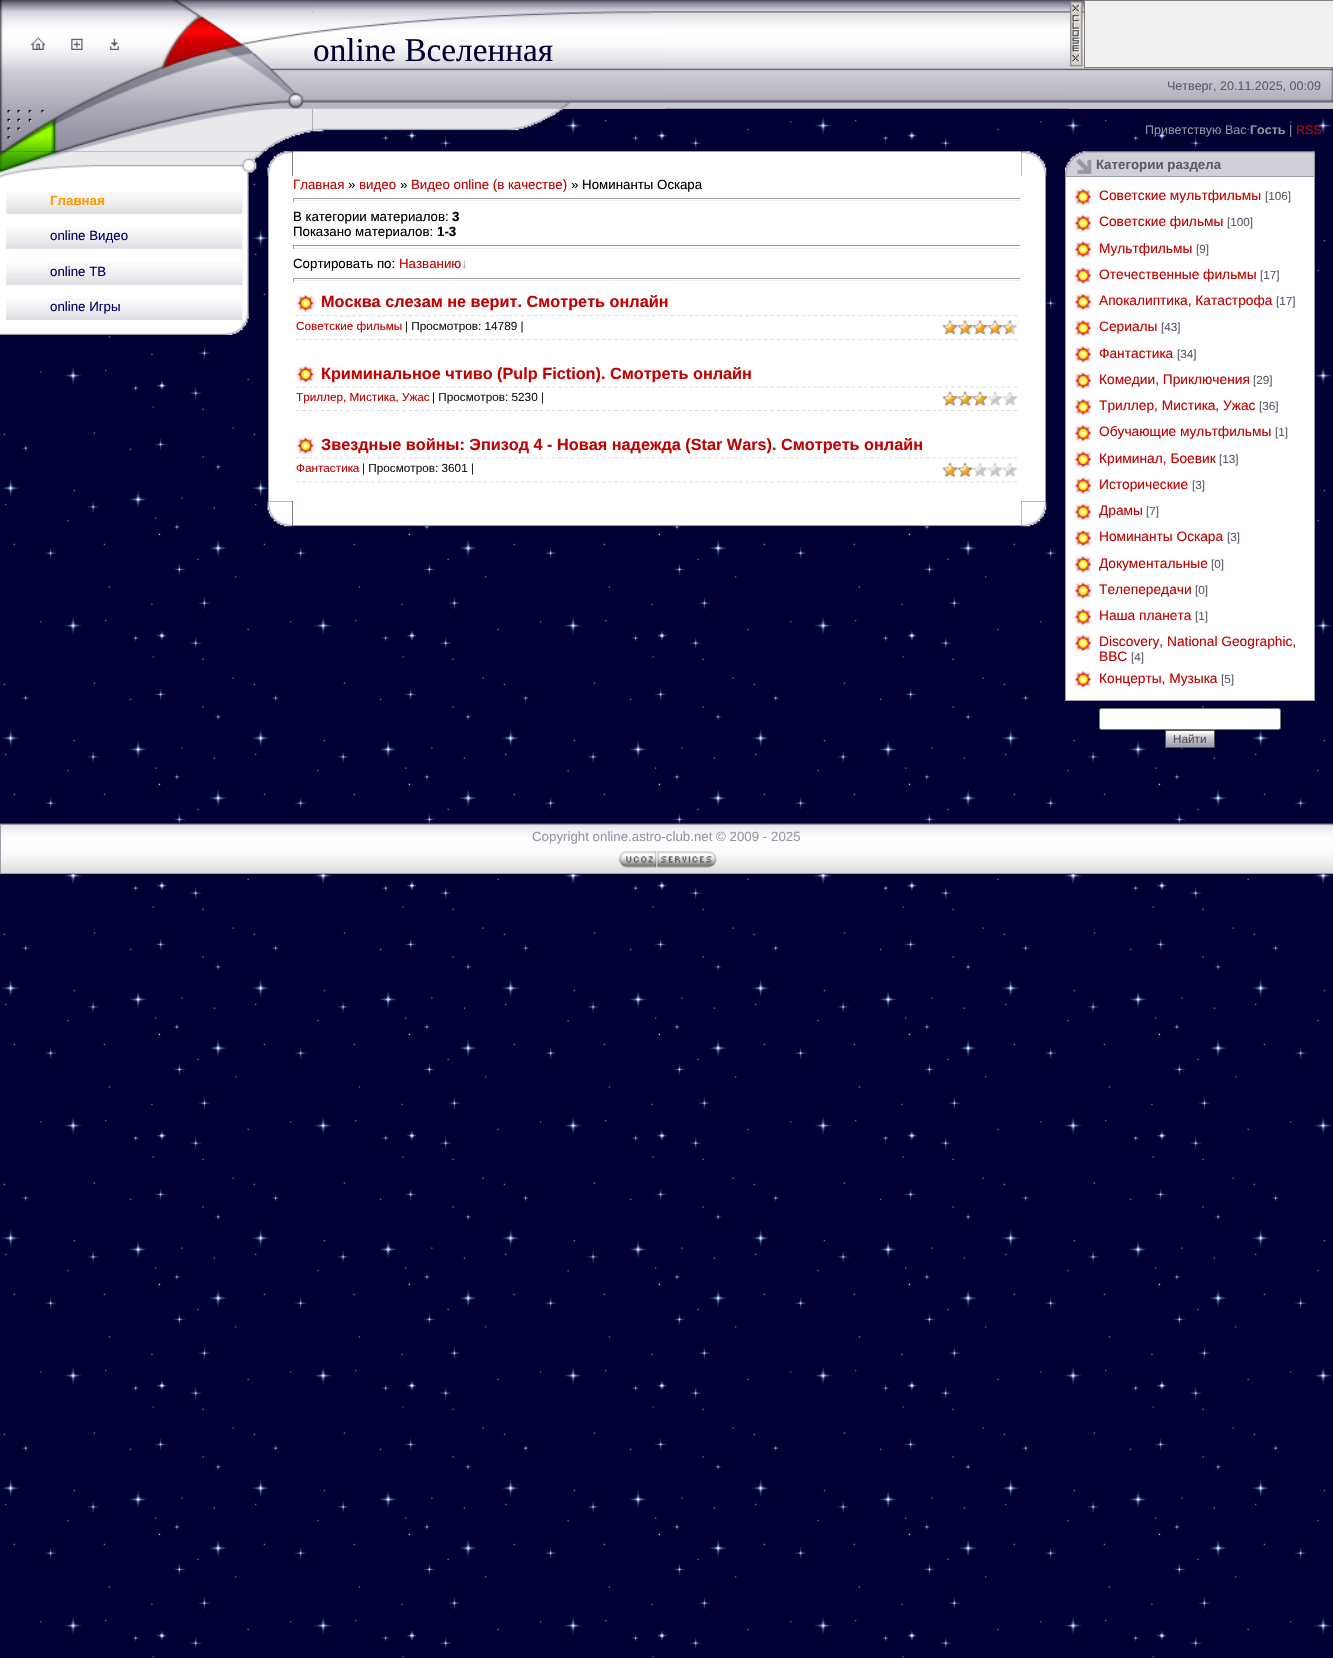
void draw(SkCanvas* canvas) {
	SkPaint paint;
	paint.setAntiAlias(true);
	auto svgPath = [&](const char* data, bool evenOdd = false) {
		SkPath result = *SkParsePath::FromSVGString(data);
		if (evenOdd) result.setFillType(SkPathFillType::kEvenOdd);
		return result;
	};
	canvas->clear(0xffffffff);
	canvas->drawImageRect(SkImages::DeferredFromEncodedData(SkData::MakeFromFileName("img1.png")), SkRect::MakeXYWH(0, 108, 1333, 1550), SkSamplingOptions());
	canvas->drawImageRect(SkImages::DeferredFromEncodedData(SkData::MakeFromFileName("img2.png")), SkRect::MakeXYWH(0, 0, 1333, 109), SkSamplingOptions());
	canvas->drawImageRect(SkImages::DeferredFromEncodedData(SkData::MakeFromFileName("img3.png")), SkRect::MakeXYWH(0, 0, 313, 109), SkSamplingOptions());
	canvas->drawImageRect(SkImages::DeferredFromEncodedData(SkData::MakeFromFileName("img4.png")), SkRect::MakeXYWH(31, 37, 14, 13), SkSamplingOptions());
	canvas->drawImageRect(SkImages::DeferredFromEncodedData(SkData::MakeFromFileName("img5.png")), SkRect::MakeXYWH(71, 38, 12, 12), SkSamplingOptions());
	canvas->drawImageRect(SkImages::DeferredFromEncodedData(SkData::MakeFromFileName("img6.png")), SkRect::MakeXYWH(109, 38, 10, 12), SkSamplingOptions());
	canvas->drawImageRect(SkImages::DeferredFromEncodedData(SkData::MakeFromFileName("img7.png")), SkRect::MakeXYWH(312, 11, 353, 98), SkSamplingOptions());
	SkFont f1(fontMgr->matchFamilyStyle("Liberation Serif", SkFontStyle::Normal()), 33.25);
	f1.setSubpixel(true);
	paint.setColor(0xff000033);
	canvas->drawString("online Вселенная", 313, 61, f1, paint);
	canvas->drawImageRect(SkImages::DeferredFromEncodedData(SkData::MakeFromFileName("img8.png")), SkRect::MakeXYWH(1067, 0, 266, 109), SkSamplingOptions());
	SkFont f2(fontMgr->matchFamilyStyle("Liberation Sans", SkFontStyle::Normal()), 12.5);
	f2.setSubpixel(true);
	paint.setColor(0xff5d5b6c);
	canvas->drawString("Четверг, 20.11.2025, 00:09", 1167, 90, f2, paint);
	canvas->drawImageRect(SkImages::DeferredFromEncodedData(SkData::MakeFromFileName("img9.png")), SkRect::MakeXYWH(0, 108, 313, 44), SkSamplingOptions());
	canvas->drawImageRect(SkImages::DeferredFromEncodedData(SkData::MakeFromFileName("img10.png")), SkRect::MakeXYWH(312, 108, 251, 24), SkSamplingOptions());
	paint.setColor(0xff9895a5);
	canvas->drawString("Приветствую Вас", 1145, 134, f2, paint);
	SkFont f3(fontMgr->matchFamilyStyle("Liberation Sans", SkFontStyle::Bold()), 12.5);
	f3.setSubpixel(true);
	canvas->drawString("Гость", 1250, 134, f3, paint);
	canvas->drawString("|", 1289, 134, f2, paint);
	paint.setColor(0xffc00202);
	canvas->drawString("RSS", 1296, 134, f2, paint);
	canvas->drawImageRect(SkImages::DeferredFromEncodedData(SkData::MakeFromFileName("img11.png")), SkRect::MakeXYWH(0, 151, 264, 29), SkSamplingOptions());
	canvas->drawImageRect(SkImages::DeferredFromEncodedData(SkData::MakeFromFileName("img12.png")), SkRect::MakeXYWH(0, 180, 249, 155), SkSamplingOptions());
	canvas->drawImageRect(SkImages::DeferredFromEncodedData(SkData::MakeFromFileName("img13.png")), SkRect::MakeXYWH(6, 192, 237, 22), SkSamplingOptions());
	SkFont f4(fontMgr->matchFamilyStyle("Liberation Sans", SkFontStyle::Bold()), 13.3);
	f4.setSubpixel(true);
	paint.setColor(0xffff9900);
	canvas->drawString("Главная", 50, 205, f4, paint);
	canvas->drawImageRect(SkImages::DeferredFromEncodedData(SkData::MakeFromFileName("img13.png")), SkRect::MakeXYWH(6, 227, 237, 22), SkSamplingOptions());
	SkFont f5(fontMgr->matchFamilyStyle("Liberation Sans", SkFontStyle::Normal()), 13.3);
	f5.setSubpixel(true);
	paint.setColor(0xff000066);
	canvas->drawString("online Видео", 50, 240, f5, paint);
	canvas->drawImageRect(SkImages::DeferredFromEncodedData(SkData::MakeFromFileName("img14.png")), SkRect::MakeXYWH(6, 263, 237, 22), SkSamplingOptions());
	canvas->drawString("online ТВ", 50, 276, f5, paint);
	canvas->drawImageRect(SkImages::DeferredFromEncodedData(SkData::MakeFromFileName("img14.png")), SkRect::MakeXYWH(6, 298, 237, 22), SkSamplingOptions());
	canvas->drawString("online Игры", 50, 311, f5, paint);
	paint.setColor(0xffffffff);
	canvas->drawRect(SkRect::MakeXYWH(269, 176, 776, 325), paint);
	paint.setColor(0xff9d9cad);
	canvas->drawRect(SkRect::MakeXYWH(268, 176, 1, 325), paint);
	canvas->drawImageRect(SkImages::DeferredFromEncodedData(SkData::MakeFromFileName("img15.png")), SkRect::MakeXYWH(267, 151, 26, 26), SkSamplingOptions());
	paint.setColor(0xffffffff);
	canvas->drawRect(SkRect::MakeXYWH(293, 152, 728, 24), paint);
	paint.setColor(0xff9d9cad);
	canvas->drawRect(SkRect::MakeXYWH(293, 151, 728, 1), paint);
	canvas->drawRect(SkRect::MakeXYWH(1045, 176, 1, 325), paint);
	canvas->drawImageRect(SkImages::DeferredFromEncodedData(SkData::MakeFromFileName("img16.png")), SkRect::MakeXYWH(1021, 151, 26, 26), SkSamplingOptions());
	canvas->drawImageRect(SkImages::DeferredFromEncodedData(SkData::MakeFromFileName("img17.png")), SkRect::MakeXYWH(1069, 1, 14, 66), SkSamplingOptions());
	paint.setColor(0xfff0f0f0);
	canvas->drawRect(SkRect::MakeXYWH(1084.5, 0.5, 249, 67), paint);
	paint.setStroke(true);
	paint.setStrokeWidth(1);
	paint.setColor(0xff808080);
	canvas->drawRect(SkRect::MakeXYWH(1084.5, 0.5, 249, 67), paint);
	paint.setStroke(false);
	paint.setColor(0xffc00202);
	canvas->drawString("Главная", 293, 189, f5, paint);
	paint.setColor(0xff000000);
	canvas->drawString("»", 348, 189, f5, paint);
	paint.setColor(0xffc00202);
	canvas->drawString("видео", 359, 189, f5, paint);
	paint.setColor(0xff000000);
	canvas->drawString("»", 400, 189, f5, paint);
	paint.setColor(0xffc00202);
	canvas->drawString("Видео online (в качестве)", 411, 189, f5, paint);
	paint.setColor(0xff000000);
	canvas->drawString("» Номинанты Оскара", 571, 189, f5, paint);
	paint.setColor(0xff9f9f9f);
	canvas->drawRect(SkRect::MakeXYWH(293, 198, 728, 1), paint);
	paint.setColor(0xffeeeeee);
	canvas->drawRect(SkRect::MakeXYWH(1020, 198, 1, 4), paint);
	canvas->drawRect(SkRect::MakeXYWH(293, 200, 728, 1), paint);
	paint.setColor(0xff9f9f9f);
	canvas->drawRect(SkRect::MakeXYWH(293, 198, 1, 4), paint);
	paint.setColor(0xff000000);
	canvas->drawString("В категории материалов:", 293, 221, f5, paint);
	canvas->drawString("3", 452, 221, f4, paint);
	canvas->drawString("Показано материалов:", 293, 236, f5, paint);
	canvas->drawString("1-3", 437, 236, f4, paint);
	paint.setColor(0xff9f9f9f);
	canvas->drawRect(SkRect::MakeXYWH(293, 245, 728, 1), paint);
	paint.setColor(0xffeeeeee);
	canvas->drawRect(SkRect::MakeXYWH(1020, 245, 1, 4), paint);
	canvas->drawRect(SkRect::MakeXYWH(293, 248, 728, 1), paint);
	paint.setColor(0xff9f9f9f);
	canvas->drawRect(SkRect::MakeXYWH(293, 245, 1, 4), paint);
	paint.setColor(0xff000000);
	canvas->drawString("Сортировать по:", 293, 268, f5, paint);
	paint.setColor(0xffc00202);
	canvas->drawString("Названию", 399, 268, f5, paint);
	paint.setColor(0xffa0a0a0);
	canvas->drawString("↓", 461, 268, f5, paint);
	paint.setColor(0xff9f9f9f);
	canvas->drawRect(SkRect::MakeXYWH(293, 278, 728, 1), paint);
	paint.setColor(0xffeeeeee);
	canvas->drawRect(SkRect::MakeXYWH(1020, 278, 1, 4), paint);
	canvas->drawRect(SkRect::MakeXYWH(293, 280, 728, 1), paint);
	paint.setColor(0xff9f9f9f);
	canvas->drawRect(SkRect::MakeXYWH(293, 278, 1, 4), paint);
	canvas->drawImageRect(SkImages::DeferredFromEncodedData(SkData::MakeFromFileName("img18.png")), SkRect::MakeXYWH(296, 294, 19, 18), SkSamplingOptions());
	SkFont f6(fontMgr->matchFamilyStyle("Liberation Sans", SkFontStyle::Bold()), 16.25);
	f6.setSubpixel(true);
	paint.setColor(0xffc00202);
	canvas->drawString("Москва слезам не верит. Смотреть онлайн", 321, 307, f6, paint);
	paint.setStroke(true);
	paint.setStrokeWidth(1.2);
	paint.setColor(0xffdddddd);
	paint.setPathEffect(SkDashPathEffect::Make({{3.75f, 2.49f}}, 0));
	canvas->drawPath(svgPath("M296 315.5H1017.5"), paint);
	paint.setPathEffect(nullptr);
	paint.setPathEffect(SkDashPathEffect::Make({{3.75f, 2.49f}}, 0));
	canvas->drawPath(svgPath("M296 339.5H1017.5"), paint);
	paint.setPathEffect(nullptr);
	SkFont f7(fontMgr->matchFamilyStyle("Liberation Sans", SkFontStyle::Normal()), 11.75);
	f7.setSubpixel(true);
	paint.setStroke(false);
	paint.setColor(0xffc00202);
	canvas->drawString("Советские фильмы", 296, 330, f7, paint);
	paint.setColor(0xff1a1a1a);
	canvas->drawString("| Просмотров: 14789 |", 405, 330, f7, paint);
	canvas->drawImageRect(SkImages::DeferredFromEncodedData(SkData::MakeFromFileName("img19.png")), SkRect::MakeXYWH(942, 320, 76, 15), SkSamplingOptions());
	canvas->drawImageRect(SkImages::DeferredFromEncodedData(SkData::MakeFromFileName("img20.png")), SkRect::MakeXYWH(942, 320, 70, 15), SkSamplingOptions());
	canvas->drawImageRect(SkImages::DeferredFromEncodedData(SkData::MakeFromFileName("img21.png")), SkRect::MakeXYWH(296, 366, 19, 17), SkSamplingOptions());
	paint.setColor(0xffc00202);
	canvas->drawString("Криминальное чтиво (Pulp Fiction). Смотреть онлайн", 321, 379, f6, paint);
	paint.setStroke(true);
	paint.setColor(0xffdddddd);
	paint.setPathEffect(SkDashPathEffect::Make({{3.75f, 2.49f}}, 0));
	canvas->drawPath(svgPath("M296 387H1017.5"), paint);
	paint.setPathEffect(nullptr);
	paint.setPathEffect(SkDashPathEffect::Make({{3.75f, 2.49f}}, 0));
	canvas->drawPath(svgPath("M296 410.5H1017.5"), paint);
	paint.setPathEffect(nullptr);
	paint.setStroke(false);
	paint.setColor(0xffc00202);
	canvas->drawString("Триллер, Мистика, Ужас", 296, 401, f7, paint);
	paint.setColor(0xff1a1a1a);
	canvas->drawString("| Просмотров: 5230 |", 432, 401, f7, paint);
	canvas->drawImageRect(SkImages::DeferredFromEncodedData(SkData::MakeFromFileName("img22.png")), SkRect::MakeXYWH(942, 391, 76, 16), SkSamplingOptions());
	canvas->drawImageRect(SkImages::DeferredFromEncodedData(SkData::MakeFromFileName("img23.png")), SkRect::MakeXYWH(942, 391, 46, 15), SkSamplingOptions());
	canvas->drawImageRect(SkImages::DeferredFromEncodedData(SkData::MakeFromFileName("img24.png")), SkRect::MakeXYWH(296, 437, 19, 17), SkSamplingOptions());
	paint.setColor(0xffc00202);
	canvas->drawString("Звездные войны: Эпизод 4 - Новая надежда (Star Wars). Смотреть онлайн", 321, 450, f6, paint);
	paint.setStroke(true);
	paint.setColor(0xffdddddd);
	paint.setPathEffect(SkDashPathEffect::Make({{3.75f, 2.49f}}, 0));
	canvas->drawPath(svgPath("M296 458H1017.5"), paint);
	paint.setPathEffect(nullptr);
	paint.setPathEffect(SkDashPathEffect::Make({{3.75f, 2.49f}}, 0));
	canvas->drawPath(svgPath("M296 482H1017.5"), paint);
	paint.setPathEffect(nullptr);
	paint.setStroke(false);
	paint.setColor(0xffc00202);
	canvas->drawString("Фантастика", 296, 472, f7, paint);
	paint.setColor(0xff1a1a1a);
	canvas->drawString("| Просмотров: 3601 |", 362, 472, f7, paint);
	canvas->drawImageRect(SkImages::DeferredFromEncodedData(SkData::MakeFromFileName("img25.png")), SkRect::MakeXYWH(942, 462, 76, 16), SkSamplingOptions());
	canvas->drawImageRect(SkImages::DeferredFromEncodedData(SkData::MakeFromFileName("img26.png")), SkRect::MakeXYWH(942, 462, 31, 16), SkSamplingOptions());
	canvas->drawImageRect(SkImages::DeferredFromEncodedData(SkData::MakeFromFileName("img27.png")), SkRect::MakeXYWH(267, 501, 26, 26), SkSamplingOptions());
	paint.setColor(0xffffffff);
	canvas->drawRect(SkRect::MakeXYWH(293, 501, 728, 24), paint);
	paint.setColor(0xff9d9cad);
	canvas->drawRect(SkRect::MakeXYWH(293, 525, 728, 1), paint);
	canvas->drawImageRect(SkImages::DeferredFromEncodedData(SkData::MakeFromFileName("img28.png")), SkRect::MakeXYWH(1021, 501, 26, 26), SkSamplingOptions());
	canvas->drawImageRect(SkImages::DeferredFromEncodedData(SkData::MakeFromFileName("img29.png")), SkRect::MakeXYWH(1065, 151, 250, 25), SkSamplingOptions());
	paint.setColor(0xff5d5b6c);
	canvas->drawString("Категории раздела", 1096, 169, f4, paint);
	paint.setColor(0xffffffff);
	canvas->drawRect(SkRect::MakeXYWH(1065.5, 176.5, 249, 524), paint);
	paint.setStroke(true);
	paint.setStrokeWidth(1);
	paint.setColor(0xff9d9cad);
	canvas->drawRect(SkRect::MakeXYWH(1065.5, 176.5, 249, 524), paint);
	canvas->drawImageRect(SkImages::DeferredFromEncodedData(SkData::MakeFromFileName("img30.png")), SkRect::MakeXYWH(1074, 188, 18, 18), SkSamplingOptions());
	SkFont f8(fontMgr->matchFamilyStyle("Liberation Sans", SkFontStyle::Normal()), 13.75);
	f8.setSubpixel(true);
	paint.setStroke(false);
	paint.setColor(0xffc00202);
	canvas->drawString("Советские мультфильмы", 1099, 200, f8, paint);
	paint.setColor(0xff5d5b6c);
	canvas->drawString("[106]", 1265, 200, f7, paint);
	canvas->drawImageRect(SkImages::DeferredFromEncodedData(SkData::MakeFromFileName("img31.png")), SkRect::MakeXYWH(1074, 214, 18, 18), SkSamplingOptions());
	paint.setColor(0xffc00202);
	canvas->drawString("Советские фильмы", 1099, 226, f8, paint);
	paint.setColor(0xff5d5b6c);
	canvas->drawString("[100]", 1227, 226, f7, paint);
	canvas->drawImageRect(SkImages::DeferredFromEncodedData(SkData::MakeFromFileName("img32.png")), SkRect::MakeXYWH(1074, 241, 18, 17), SkSamplingOptions());
	paint.setColor(0xffc00202);
	canvas->drawString("Мультфильмы", 1099, 253, f8, paint);
	paint.setColor(0xff5d5b6c);
	canvas->drawString("[9]", 1196, 253, f7, paint);
	canvas->drawImageRect(SkImages::DeferredFromEncodedData(SkData::MakeFromFileName("img33.png")), SkRect::MakeXYWH(1074, 267, 18, 17), SkSamplingOptions());
	paint.setColor(0xffc00202);
	canvas->drawString("Отечественные фильмы", 1099, 279, f8, paint);
	paint.setColor(0xff5d5b6c);
	canvas->drawString("[17]", 1260, 279, f7, paint);
	canvas->drawImageRect(SkImages::DeferredFromEncodedData(SkData::MakeFromFileName("img34.png")), SkRect::MakeXYWH(1074, 293, 18, 18), SkSamplingOptions());
	paint.setColor(0xffc00202);
	canvas->drawString("Апокалиптика, Катастрофа", 1099, 305, f8, paint);
	paint.setColor(0xff5d5b6c);
	canvas->drawString("[17]", 1276, 305, f7, paint);
	canvas->drawImageRect(SkImages::DeferredFromEncodedData(SkData::MakeFromFileName("img31.png")), SkRect::MakeXYWH(1074, 319, 18, 18), SkSamplingOptions());
	paint.setColor(0xffc00202);
	canvas->drawString("Сериалы", 1099, 331, f8, paint);
	paint.setColor(0xff5d5b6c);
	canvas->drawString("[43]", 1161, 331, f7, paint);
	canvas->drawImageRect(SkImages::DeferredFromEncodedData(SkData::MakeFromFileName("img32.png")), SkRect::MakeXYWH(1074, 346, 18, 17), SkSamplingOptions());
	paint.setColor(0xffc00202);
	canvas->drawString("Фантастика", 1099, 358, f8, paint);
	paint.setColor(0xff5d5b6c);
	canvas->drawString("[34]", 1177, 358, f7, paint);
	canvas->drawImageRect(SkImages::DeferredFromEncodedData(SkData::MakeFromFileName("img33.png")), SkRect::MakeXYWH(1074, 372, 18, 17), SkSamplingOptions());
	paint.setColor(0xffc00202);
	canvas->drawString("Комедии, Приключения", 1099, 384, f8, paint);
	paint.setColor(0xff5d5b6c);
	canvas->drawString("[29]", 1253, 384, f7, paint);
	canvas->drawImageRect(SkImages::DeferredFromEncodedData(SkData::MakeFromFileName("img30.png")), SkRect::MakeXYWH(1074, 398, 18, 18), SkSamplingOptions());
	paint.setColor(0xffc00202);
	canvas->drawString("Триллер, Мистика, Ужас", 1099, 410, f8, paint);
	paint.setColor(0xff5d5b6c);
	canvas->drawString("[36]", 1259, 410, f7, paint);
	canvas->drawImageRect(SkImages::DeferredFromEncodedData(SkData::MakeFromFileName("img31.png")), SkRect::MakeXYWH(1074, 424, 18, 18), SkSamplingOptions());
	paint.setColor(0xffc00202);
	canvas->drawString("Обучающие мультфильмы", 1099, 436, f8, paint);
	paint.setColor(0xff5d5b6c);
	canvas->drawString("[1]", 1275, 436, f7, paint);
	canvas->drawImageRect(SkImages::DeferredFromEncodedData(SkData::MakeFromFileName("img32.png")), SkRect::MakeXYWH(1074, 451, 18, 17), SkSamplingOptions());
	paint.setColor(0xffc00202);
	canvas->drawString("Криминал, Боевик", 1099, 463, f8, paint);
	paint.setColor(0xff5d5b6c);
	canvas->drawString("[13]", 1219, 463, f7, paint);
	canvas->drawImageRect(SkImages::DeferredFromEncodedData(SkData::MakeFromFileName("img33.png")), SkRect::MakeXYWH(1074, 477, 18, 17), SkSamplingOptions());
	paint.setColor(0xffc00202);
	canvas->drawString("Исторические", 1099, 489, f8, paint);
	paint.setColor(0xff5d5b6c);
	canvas->drawString("[3]", 1192, 489, f7, paint);
	canvas->drawImageRect(SkImages::DeferredFromEncodedData(SkData::MakeFromFileName("img30.png")), SkRect::MakeXYWH(1074, 503, 18, 18), SkSamplingOptions());
	paint.setColor(0xffc00202);
	canvas->drawString("Драмы", 1099, 515, f8, paint);
	paint.setColor(0xff5d5b6c);
	canvas->drawString("[7]", 1146, 515, f7, paint);
	canvas->drawImageRect(SkImages::DeferredFromEncodedData(SkData::MakeFromFileName("img31.png")), SkRect::MakeXYWH(1074, 529, 18, 18), SkSamplingOptions());
	paint.setColor(0xffc00202);
	canvas->drawString("Номинанты Оскара", 1099, 541, f8, paint);
	paint.setColor(0xff5d5b6c);
	canvas->drawString("[3]", 1227, 541, f7, paint);
	canvas->drawImageRect(SkImages::DeferredFromEncodedData(SkData::MakeFromFileName("img32.png")), SkRect::MakeXYWH(1074, 556, 18, 17), SkSamplingOptions());
	paint.setColor(0xffc00202);
	canvas->drawString("Документальные", 1099, 568, f8, paint);
	paint.setColor(0xff5d5b6c);
	canvas->drawString("[0]", 1211, 568, f7, paint);
	canvas->drawImageRect(SkImages::DeferredFromEncodedData(SkData::MakeFromFileName("img35.png")), SkRect::MakeXYWH(1074, 582, 18, 17), SkSamplingOptions());
	paint.setColor(0xffc00202);
	canvas->drawString("Телепередачи", 1099, 594, f8, paint);
	paint.setColor(0xff5d5b6c);
	canvas->drawString("[0]", 1195, 594, f7, paint);
	canvas->drawImageRect(SkImages::DeferredFromEncodedData(SkData::MakeFromFileName("img30.png")), SkRect::MakeXYWH(1074, 608, 18, 18), SkSamplingOptions());
	paint.setColor(0xffc00202);
	canvas->drawString("Наша планета", 1099, 620, f8, paint);
	paint.setColor(0xff5d5b6c);
	canvas->drawString("[1]", 1195, 620, f7, paint);
	canvas->drawImageRect(SkImages::DeferredFromEncodedData(SkData::MakeFromFileName("img31.png")), SkRect::MakeXYWH(1074, 634, 18, 18), SkSamplingOptions());
	paint.setColor(0xffc00202);
	canvas->drawString("Discovery, National Geographic,", 1099, 646, f8, paint);
	canvas->drawString("BBC", 1099, 661, f8, paint);
	paint.setColor(0xff5d5b6c);
	canvas->drawString("[4]", 1131, 661, f7, paint);
	canvas->drawImageRect(SkImages::DeferredFromEncodedData(SkData::MakeFromFileName("img32.png")), SkRect::MakeXYWH(1074, 671, 18, 17), SkSamplingOptions());
	paint.setColor(0xffc00202);
	canvas->drawString("Концерты, Музыка", 1099, 683, f8, paint);
	paint.setColor(0xff5d5b6c);
	canvas->drawString("[5]", 1221, 683, f7, paint);
	paint.setColor(0xffffffff);
	canvas->drawRoundRect(SkRect::MakeXYWH(1099.5, 708.5, 181, 21), 2, 2, paint);
	paint.setStroke(true);
	paint.setColor(0xff767676);
	canvas->drawRoundRect(SkRect::MakeXYWH(1099.5, 708.5, 181, 21), 2, 2, paint);
	canvas->drawImageRect(SkImages::DeferredFromEncodedData(SkData::MakeFromFileName("img36.png")), SkRect::MakeXYWH(1166, 731, 48, 16), SkSamplingOptions());
	paint.setColor(0xff53515a);
	canvas->drawRect(SkRect::MakeXYWH(1165.5, 730.5, 49, 17), paint);
	paint.setStroke(false);
	canvas->drawString("Найти", 1173, 743, f7, paint);
	canvas->drawImageRect(SkImages::DeferredFromEncodedData(SkData::MakeFromFileName("img37.png")), SkRect::MakeXYWH(0, 823, 1333, 50), SkSamplingOptions());
	paint.setStroke(true);
	paint.setColor(0xff9d9cad);
	canvas->drawRect(SkRect::MakeXYWH(0.5, 824.5, 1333, 49), paint);
	paint.setStroke(false);
	paint.setColor(0xff9895a5);
	canvas->drawString("Copyright online.astro-club.net © 2009 - 2025", 532, 841, f5, paint);
	canvas->drawImageRect(SkImages::DeferredFromEncodedData(SkData::MakeFromFileName("img38.png")), SkRect::MakeXYWH(618, 851, 99, 17), SkSamplingOptions());
}
